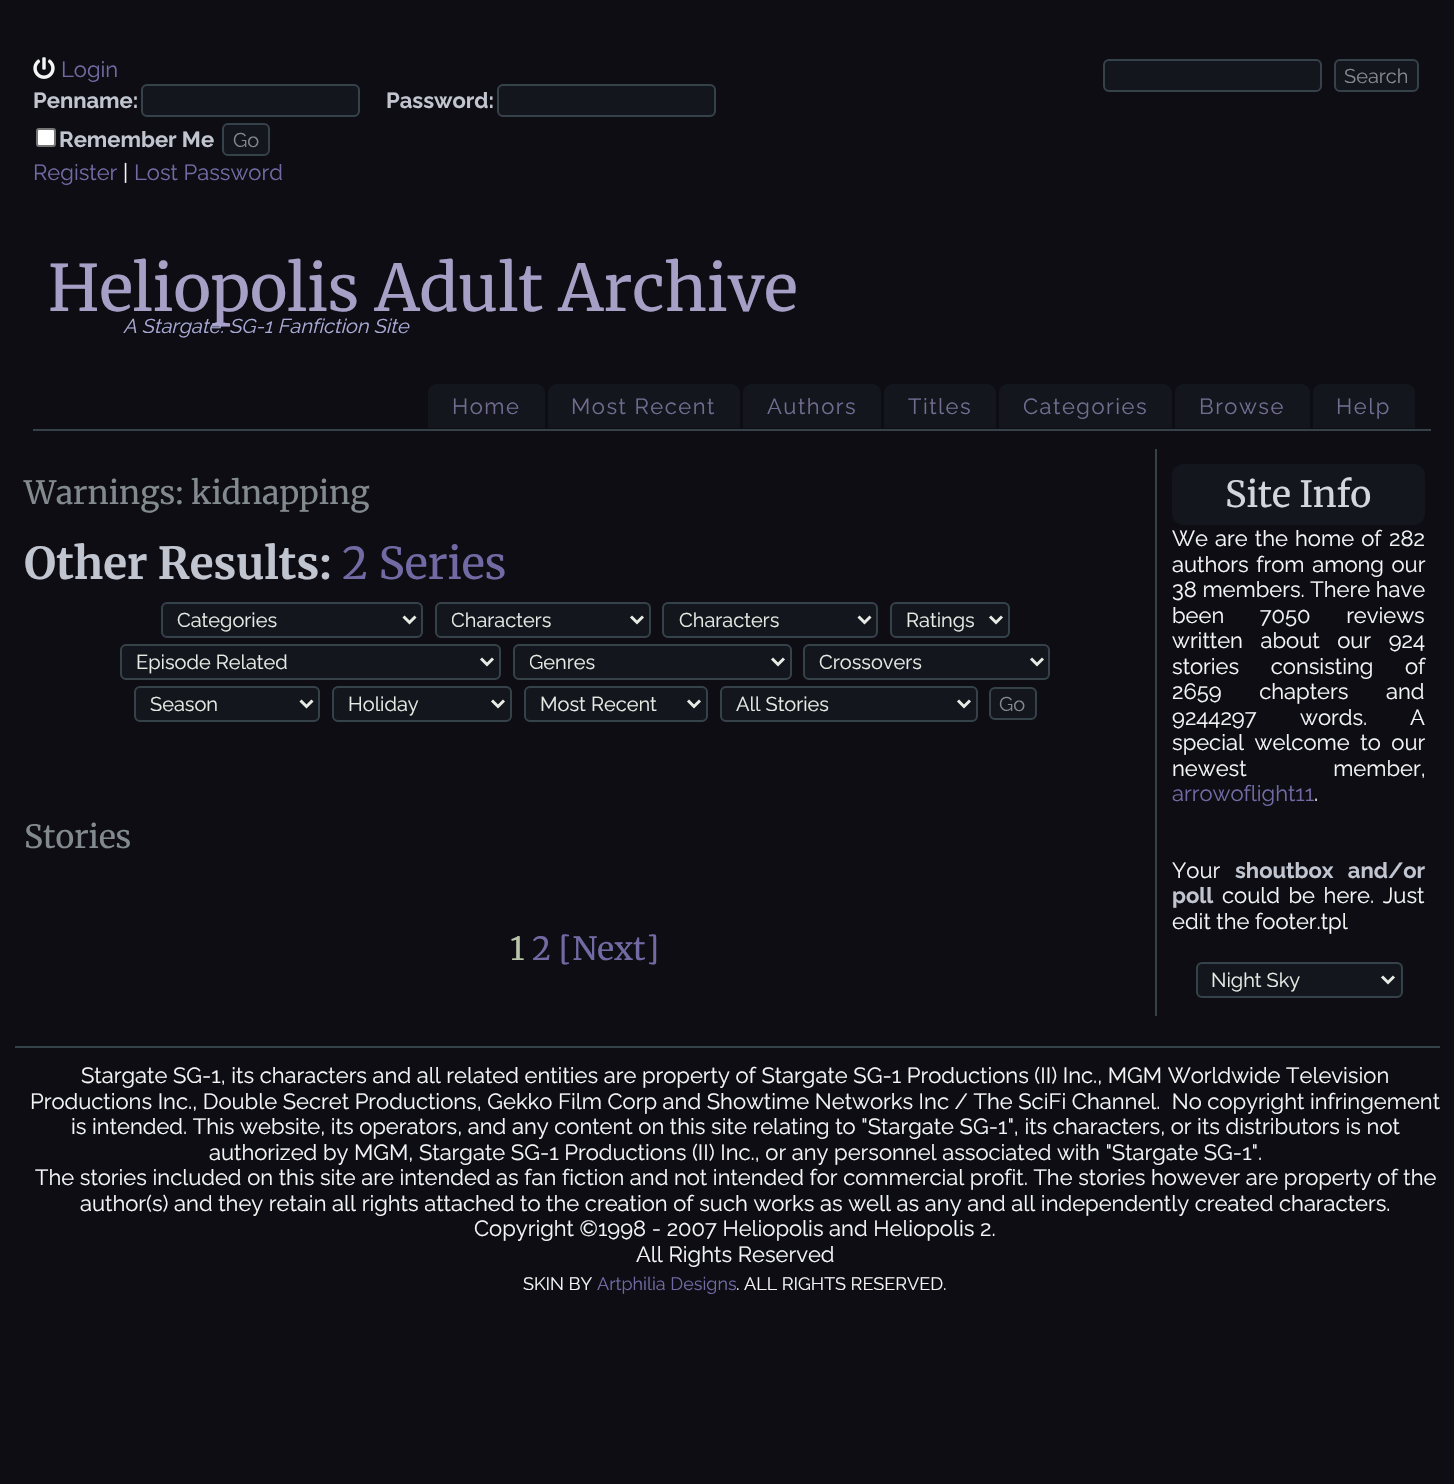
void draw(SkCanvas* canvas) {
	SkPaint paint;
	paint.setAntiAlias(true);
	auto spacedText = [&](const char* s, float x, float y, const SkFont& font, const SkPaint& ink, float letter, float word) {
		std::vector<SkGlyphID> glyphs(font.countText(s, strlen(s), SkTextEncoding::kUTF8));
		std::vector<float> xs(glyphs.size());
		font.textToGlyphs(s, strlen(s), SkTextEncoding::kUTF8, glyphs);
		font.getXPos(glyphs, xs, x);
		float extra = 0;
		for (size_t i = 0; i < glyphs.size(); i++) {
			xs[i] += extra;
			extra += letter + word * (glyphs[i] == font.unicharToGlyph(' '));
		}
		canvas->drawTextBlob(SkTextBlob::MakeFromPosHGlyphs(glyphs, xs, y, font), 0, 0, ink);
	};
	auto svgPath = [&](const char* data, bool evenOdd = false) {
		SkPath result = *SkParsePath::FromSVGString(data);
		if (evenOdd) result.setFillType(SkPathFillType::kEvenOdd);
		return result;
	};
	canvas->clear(0xff0d0d13);
	canvas->drawImageRect(SkImages::DeferredFromEncodedData(SkData::MakeFromFileName("img1.png")), SkRect::MakeXYWH(33, 57, 22, 22), SkSamplingOptions());
	SkFont f1(fontMgr->matchFamilyStyle("Raleway", SkFontStyle::Normal()), 22);
	f1.setSubpixel(true);
	paint.setColor(0xff726aa4);
	canvas->drawString("Login", 61, 77, f1, paint);
	SkFont f2(fontMgr->matchFamilyStyle("Raleway", SkFontStyle::Bold()), 22);
	f2.setSubpixel(true);
	paint.setColor(0xffc1c5d0);
	canvas->drawString("Penname:", 33, 108, f2, paint);
	paint.setColor(0xff13161d);
	canvas->drawRoundRect(SkRect::MakeXYWH(142, 85, 217, 31), 5, 5, paint);
	paint.setStroke(true);
	paint.setStrokeWidth(2);
	paint.setColor(0xff36424a);
	canvas->drawRoundRect(SkRect::MakeXYWH(142, 85, 217, 31), 5, 5, paint);
	paint.setStroke(false);
	paint.setColor(0xffc1c5d0);
	canvas->drawString("Password:", 386, 108, f2, paint);
	paint.setColor(0xff13161d);
	canvas->drawRoundRect(SkRect::MakeXYWH(498, 85, 217, 31), 5, 5, paint);
	paint.setStroke(true);
	paint.setColor(0xff36424a);
	canvas->drawRoundRect(SkRect::MakeXYWH(498, 85, 217, 31), 5, 5, paint);
	paint.setStroke(false);
	paint.setColor(0xffffffff);
	canvas->drawRoundRect(SkRect::MakeXYWH(37, 129, 18, 17), 2, 2, paint);
	paint.setStroke(true);
	paint.setColor(0xff767676);
	canvas->drawRoundRect(SkRect::MakeXYWH(37, 129, 18, 17), 2, 2, paint);
	paint.setStroke(false);
	paint.setColor(0xffc1c5d0);
	canvas->drawString("Remember Me", 59, 147, f2, paint);
	paint.setColor(0xff13161d);
	canvas->drawRoundRect(SkRect::MakeXYWH(223, 124, 46, 31), 5, 5, paint);
	paint.setStroke(true);
	paint.setColor(0xff36424a);
	canvas->drawRoundRect(SkRect::MakeXYWH(223, 124, 46, 31), 5, 5, paint);
	SkFont f3(fontMgr->matchFamilyStyle("Raleway", SkFontStyle::Normal()), 20);
	f3.setSubpixel(true);
	paint.setStroke(false);
	paint.setColor(0xff828a8f);
	canvas->drawString("Go", 233, 147, f3, paint);
	paint.setColor(0xff726aa4);
	canvas->drawString("Register", 33, 180, f1, paint);
	paint.setColor(0xfff4f6f6);
	canvas->drawString("|", 123, 180, f1, paint);
	paint.setColor(0xff726aa4);
	canvas->drawString("Lost Password", 134, 180, f1, paint);
	paint.setColor(0xff13161d);
	canvas->drawRoundRect(SkRect::MakeXYWH(1104, 60, 217, 31), 5, 5, paint);
	paint.setStroke(true);
	paint.setColor(0xff36424a);
	canvas->drawRoundRect(SkRect::MakeXYWH(1104, 60, 217, 31), 5, 5, paint);
	paint.setStroke(false);
	paint.setColor(0xff13161d);
	canvas->drawRoundRect(SkRect::MakeXYWH(1335, 60, 83, 31), 5, 5, paint);
	paint.setStroke(true);
	paint.setColor(0xff36424a);
	canvas->drawRoundRect(SkRect::MakeXYWH(1335, 60, 83, 31), 5, 5, paint);
	paint.setStroke(false);
	paint.setColor(0xff828a8f);
	canvas->drawString("Search", 1344, 83, f3, paint);
	paint.setColor(0xff36424a);
	canvas->drawRect(SkRect::MakeXYWH(33, 429, 1398, 2), paint);
	SkFont f4(fontMgr->matchFamilyStyle("Merriweather", SkFontStyle::Normal()), 64);
	f4.setSubpixel(true);
	paint.setColor(0xffa6a0c7);
	canvas->drawString("Heliopolis Adult Archive", 48, 311, f4, paint);
	SkFont f5(fontMgr->matchFamilyStyle("Raleway", SkFontStyle::Italic()), 20);
	f5.setSubpixel(true);
	paint.setColor(0xffaaaad8);
	canvas->drawString("A Stargate: SG-1 Fanfiction Site", 123, 333, f5, paint);
	paint.setColor(0xff13161d);
	canvas->drawPath(svgPath("M437 384H536C541 384 545 388 545 393V428H428V393C428 388 432 384 437 384Z"), paint);
	paint.setColor(0xff716c90);
	spacedText("Home", 452, 414, f1, paint, 1.5, 0);
	paint.setColor(0xff13161d);
	canvas->drawPath(svgPath("M557 384H731C736 384 740 388 740 393V428H548V393C548 388 552 384 557 384Z"), paint);
	paint.setColor(0xff716c90);
	spacedText("Most Recent", 571, 414, f1, paint, 1.5, 0);
	paint.setColor(0xff13161d);
	canvas->drawPath(svgPath("M752 384H872C877 384 881 388 881 393V428H743V393C743 388 747 384 752 384Z"), paint);
	paint.setColor(0xff716c90);
	spacedText("Authors", 767, 414, f1, paint, 1.5, 0);
	paint.setColor(0xff13161d);
	canvas->drawPath(svgPath("M893 384H987C992 384 996 388 996 393V428H884V393C884 388 888 384 893 384Z"), paint);
	paint.setColor(0xff716c90);
	spacedText("Titles", 908, 414, f1, paint, 1.5, 0);
	paint.setColor(0xff13161d);
	canvas->drawPath(svgPath("M1008 384H1163C1168 384 1172 388 1172 393V428H999V393C999 388 1003 384 1008 384Z"), paint);
	paint.setColor(0xff716c90);
	spacedText("Categories", 1023, 414, f1, paint, 1.5, 0);
	paint.setColor(0xff13161d);
	canvas->drawPath(svgPath("M1184 384H1301C1306 384 1310 388 1310 393V428H1175V393C1175 388 1179 384 1184 384Z"), paint);
	paint.setColor(0xff716c90);
	spacedText("Browse", 1199, 414, f1, paint, 1.5, 0);
	paint.setColor(0xff13161d);
	canvas->drawPath(svgPath("M1322 384H1406C1411 384 1415 388 1415 393V428H1313V393C1313 388 1317 384 1322 384Z"), paint);
	paint.setColor(0xff716c90);
	spacedText("Help", 1336, 414, f1, paint, 1.5, 0);
	SkFont f6(fontMgr->matchFamilyStyle("Merriweather", SkFontStyle::Normal()), 32);
	f6.setSubpixel(true);
	paint.setColor(0xff828a8f);
	canvas->drawString("Warnings: kidnapping", 24, 504, f6, paint);
	SkFont f7(fontMgr->matchFamilyStyle("Merriweather", SkFontStyle::Bold()), 44);
	f7.setSubpixel(true);
	paint.setColor(0xffc1c5d0);
	canvas->drawString("Other Results:", 24, 579, f7, paint);
	SkFont f8(fontMgr->matchFamilyStyle("Merriweather", SkFontStyle::Normal()), 44);
	f8.setSubpixel(true);
	paint.setColor(0xff726aa4);
	canvas->drawString("2 Series", 342, 579, f8, paint);
	paint.setColor(0xff13161d);
	canvas->drawRoundRect(SkRect::MakeXYWH(162, 603, 260, 34), 5, 5, paint);
	paint.setStroke(true);
	paint.setColor(0xff36424a);
	canvas->drawRoundRect(SkRect::MakeXYWH(162, 603, 260, 34), 5, 5, paint);
	paint.setStrokeWidth(3);
	paint.setColor(0xffe8ebe4);
	canvas->drawPath(svgPath("M403.5 616.5L409.5 622.5L415.5 616.5"), paint);
	paint.setStroke(false);
	canvas->drawString("Categories", 177, 627, f3, paint);
	paint.setColor(0xff13161d);
	canvas->drawRoundRect(SkRect::MakeXYWH(436, 603, 214, 34), 5, 5, paint);
	paint.setStroke(true);
	paint.setStrokeWidth(2);
	paint.setColor(0xff36424a);
	canvas->drawRoundRect(SkRect::MakeXYWH(436, 603, 214, 34), 5, 5, paint);
	paint.setStrokeWidth(3);
	paint.setColor(0xffe8ebe4);
	canvas->drawPath(svgPath("M631 616.5L637 622.5L643 616.5"), paint);
	canvas->save();
	canvas->clipRect(SkRect::MakeXYWH(452, 606, 165, 27));
	paint.setStroke(false);
	canvas->drawString("Characters", 451, 627, f3, paint);
	canvas->restore();
	paint.setColor(0xff13161d);
	canvas->drawRoundRect(SkRect::MakeXYWH(663, 603, 214, 34), 5, 5, paint);
	paint.setStroke(true);
	paint.setStrokeWidth(2);
	paint.setColor(0xff36424a);
	canvas->drawRoundRect(SkRect::MakeXYWH(663, 603, 214, 34), 5, 5, paint);
	paint.setStrokeWidth(3);
	paint.setColor(0xffe8ebe4);
	canvas->drawPath(svgPath("M858.5 616.5L864.5 622.5L870.5 616.5"), paint);
	paint.setStroke(false);
	canvas->drawString("Characters", 679, 627, f3, paint);
	paint.setColor(0xff13161d);
	canvas->drawRoundRect(SkRect::MakeXYWH(891, 603, 118, 34), 5, 5, paint);
	paint.setStroke(true);
	paint.setStrokeWidth(2);
	paint.setColor(0xff36424a);
	canvas->drawRoundRect(SkRect::MakeXYWH(891, 603, 118, 34), 5, 5, paint);
	paint.setStrokeWidth(3);
	paint.setColor(0xffe8ebe4);
	canvas->drawPath(svgPath("M990 616.5L996 622.5L1002 616.5"), paint);
	paint.setStroke(false);
	canvas->drawString("Ratings", 906, 627, f3, paint);
	paint.setColor(0xff13161d);
	canvas->drawRoundRect(SkRect::MakeXYWH(121, 645, 379, 34), 5, 5, paint);
	paint.setStroke(true);
	paint.setStrokeWidth(2);
	paint.setColor(0xff36424a);
	canvas->drawRoundRect(SkRect::MakeXYWH(121, 645, 379, 34), 5, 5, paint);
	paint.setStrokeWidth(3);
	paint.setColor(0xffe8ebe4);
	canvas->drawPath(svgPath("M481 658.5L487 664.5L493 658.5"), paint);
	paint.setStroke(false);
	canvas->drawString("Episode Related", 136, 669, f3, paint);
	paint.setColor(0xff13161d);
	canvas->drawRoundRect(SkRect::MakeXYWH(514, 645, 277, 34), 5, 5, paint);
	paint.setStroke(true);
	paint.setStrokeWidth(2);
	paint.setColor(0xff36424a);
	canvas->drawRoundRect(SkRect::MakeXYWH(514, 645, 277, 34), 5, 5, paint);
	paint.setStrokeWidth(3);
	paint.setColor(0xffe8ebe4);
	canvas->drawPath(svgPath("M772 658.5L778 664.5L784 658.5"), paint);
	canvas->save();
	canvas->clipRect(SkRect::MakeXYWH(530, 648, 228, 27));
	paint.setStroke(false);
	canvas->drawString("Genres", 529, 669, f3, paint);
	canvas->restore();
	paint.setColor(0xff13161d);
	canvas->drawRoundRect(SkRect::MakeXYWH(804, 645, 245, 34), 5, 5, paint);
	paint.setStroke(true);
	paint.setStrokeWidth(2);
	paint.setColor(0xff36424a);
	canvas->drawRoundRect(SkRect::MakeXYWH(804, 645, 245, 34), 5, 5, paint);
	paint.setStrokeWidth(3);
	paint.setColor(0xffe8ebe4);
	canvas->drawPath(svgPath("M1031 658.5L1037 664.5L1043 658.5"), paint);
	paint.setStroke(false);
	canvas->drawString("Crossovers", 819, 669, f3, paint);
	paint.setColor(0xff13161d);
	canvas->drawRoundRect(SkRect::MakeXYWH(135, 687, 184, 34), 5, 5, paint);
	paint.setStroke(true);
	paint.setStrokeWidth(2);
	paint.setColor(0xff36424a);
	canvas->drawRoundRect(SkRect::MakeXYWH(135, 687, 184, 34), 5, 5, paint);
	paint.setStrokeWidth(3);
	paint.setColor(0xffe8ebe4);
	canvas->drawPath(svgPath("M300.5 700.5L306.5 706.5L312.5 700.5"), paint);
	paint.setStroke(false);
	canvas->drawString("Season", 150, 711, f3, paint);
	paint.setColor(0xff13161d);
	canvas->drawRoundRect(SkRect::MakeXYWH(333, 687, 178, 34), 5, 5, paint);
	paint.setStroke(true);
	paint.setStrokeWidth(2);
	paint.setColor(0xff36424a);
	canvas->drawRoundRect(SkRect::MakeXYWH(333, 687, 178, 34), 5, 5, paint);
	paint.setStrokeWidth(3);
	paint.setColor(0xffe8ebe4);
	canvas->drawPath(svgPath("M492 700.5L498 706.5L504 700.5"), paint);
	paint.setStroke(false);
	canvas->drawString("Holiday", 348, 711, f3, paint);
	paint.setColor(0xff13161d);
	canvas->drawRoundRect(SkRect::MakeXYWH(525, 687, 182, 34), 5, 5, paint);
	paint.setStroke(true);
	paint.setStrokeWidth(2);
	paint.setColor(0xff36424a);
	canvas->drawRoundRect(SkRect::MakeXYWH(525, 687, 182, 34), 5, 5, paint);
	paint.setStrokeWidth(3);
	paint.setColor(0xffe8ebe4);
	canvas->drawPath(svgPath("M688 700.5L694 706.5L700 700.5"), paint);
	paint.setStroke(false);
	canvas->drawString("Most Recent", 540, 711, f3, paint);
	paint.setColor(0xff13161d);
	canvas->drawRoundRect(SkRect::MakeXYWH(721, 687, 256, 34), 5, 5, paint);
	paint.setStroke(true);
	paint.setStrokeWidth(2);
	paint.setColor(0xff36424a);
	canvas->drawRoundRect(SkRect::MakeXYWH(721, 687, 256, 34), 5, 5, paint);
	paint.setStrokeWidth(3);
	paint.setColor(0xffe8ebe4);
	canvas->drawPath(svgPath("M958 700.5L964 706.5L970 700.5"), paint);
	paint.setStroke(false);
	canvas->drawString("All Stories", 736, 711, f3, paint);
	paint.setColor(0xff13161d);
	canvas->drawRoundRect(SkRect::MakeXYWH(990, 688, 46, 31), 5, 5, paint);
	paint.setStroke(true);
	paint.setStrokeWidth(2);
	paint.setColor(0xff36424a);
	canvas->drawRoundRect(SkRect::MakeXYWH(990, 688, 46, 31), 5, 5, paint);
	paint.setStroke(false);
	paint.setColor(0xff828a8f);
	canvas->drawString("Go", 999, 711, f3, paint);
	canvas->drawString("Stories", 24, 848, f6, paint);
	paint.setColor(0xffb9c4aa);
	canvas->drawString("1", 510, 960, f6, paint);
	paint.setColor(0xff726aa4);
	canvas->drawString("2 [Next]", 532, 960, f6, paint);
	paint.setColor(0xff36424a);
	canvas->drawRect(SkRect::MakeXYWH(1155, 449, 2, 567), paint);
	paint.setColor(0xff13161d);
	canvas->drawRoundRect(SkRect::MakeXYWH(1172, 464, 253, 61), 12, 12, paint);
	SkFont f9(fontMgr->matchFamilyStyle("Merriweather", SkFontStyle::Normal()), 36);
	f9.setSubpixel(true);
	paint.setColor(0xffd2d7df);
	canvas->drawString("Site Info", 1225, 507, f9, paint);
	paint.setColor(0xfff4f6f6);
	spacedText("We are the home of", 1172, 546, f1, paint, 0, 1.5);
	canvas->drawString("282", 1389, 546, f1, paint);
	spacedText("authors from among our", 1172, 572, f1, paint, 0, 2);
	canvas->drawString("38 members. There have", 1172, 597, f1, paint);
	spacedText("been 7050 reviews", 1172, 623, f1, paint, 0, 30);
	spacedText("written about our 924", 1172, 648, f1, paint, 0, 12);
	spacedText("stories consisting of", 1172, 674, f1, paint, 0, 26);
	spacedText("2659 chapters and", 1172, 699, f1, paint, 0, 32);
	spacedText("9244297 words.", 1172, 725, f1, paint, 0, 38);
	canvas->drawString("A", 1410, 725, f1, paint);
	spacedText("special welcome to our", 1172, 750, f1, paint, 0, 5);
	spacedText("newest member,", 1172, 776, f1, paint, 0, 81);
	paint.setColor(0xff726aa4);
	canvas->drawString("arrowoflight11", 1172, 801, f1, paint);
	paint.setColor(0xfff4f6f6);
	canvas->drawString(".", 1314, 801, f1, paint);
	canvas->drawString("Your", 1172, 878, f1, paint);
	paint.setColor(0xffc1c5d0);
	spacedText("shoutbox and/or", 1235, 878, f2, paint, 0, 9);
	canvas->drawString("poll", 1172, 903, f2, paint);
	paint.setColor(0xfff4f6f6);
	spacedText("could be here. Just", 1222, 903, f1, paint, 0, 3);
	canvas->drawString("edit the footer.tpl", 1172, 929, f1, paint);
	paint.setColor(0xff13161d);
	canvas->drawRoundRect(SkRect::MakeXYWH(1197, 963, 205, 34), 5, 5, paint);
	paint.setStroke(true);
	paint.setColor(0xff36424a);
	canvas->drawRoundRect(SkRect::MakeXYWH(1197, 963, 205, 34), 5, 5, paint);
	paint.setStrokeWidth(3);
	paint.setColor(0xffe8ebe4);
	canvas->drawPath(svgPath("M1382 976.5L1388 982.5L1394 976.5"), paint);
	paint.setStroke(false);
	canvas->drawString("Night Sky", 1211, 987, f3, paint);
	paint.setColor(0xff36424a);
	canvas->drawRect(SkRect::MakeXYWH(15, 1046, 1425, 2), paint);
	paint.setColor(0xfff4f6f6);
	canvas->drawString("Stargate SG-1, its characters and all related entities are property of Stargate SG-1 Productions (II) Inc., MGM Worldwide Television", 81, 1083, f1, paint);
	canvas->drawString("Productions Inc., Double Secret Productions, Gekko Film Corp and Showtime Networks Inc / The SciFi Channel.  No copyright infringement", 30, 1109, f1, paint);
	canvas->drawString("is intended. This website, its operators, and any content on this site relating to \"Stargate SG-1\", its characters, or its distributors is not", 71, 1134, f1, paint);
	canvas->drawString("authorized by MGM, Stargate SG-1 Productions (II) Inc., or any personnel associated with \"Stargate SG-1\".", 209, 1160, f1, paint);
	canvas->drawString("The stories included on this site are intended as fan fiction and not intended for commercial profit. The stories however are property of the", 35, 1185, f1, paint);
	canvas->drawString("author(s) and they retain all rights attached to the creation of such works as well as any and all independently created characters.", 80, 1211, f1, paint);
	canvas->drawString("Copyright ©1998 - 2007 Heliopolis and Heliopolis 2.", 474, 1236, f1, paint);
	canvas->drawString("All Rights Reserved", 636, 1262, f1, paint);
	SkFont f10(fontMgr->matchFamilyStyle("Raleway", SkFontStyle::Normal()), 18);
	f10.setSubpixel(true);
	canvas->drawString("SKIN BY", 523, 1290, f10, paint);
	paint.setColor(0xff726aa4);
	canvas->drawString("Artphilia Designs", 597, 1290, f10, paint);
	paint.setColor(0xfff4f6f6);
	canvas->drawString(". ALL RIGHTS RESERVED.", 736, 1290, f10, paint);
}
